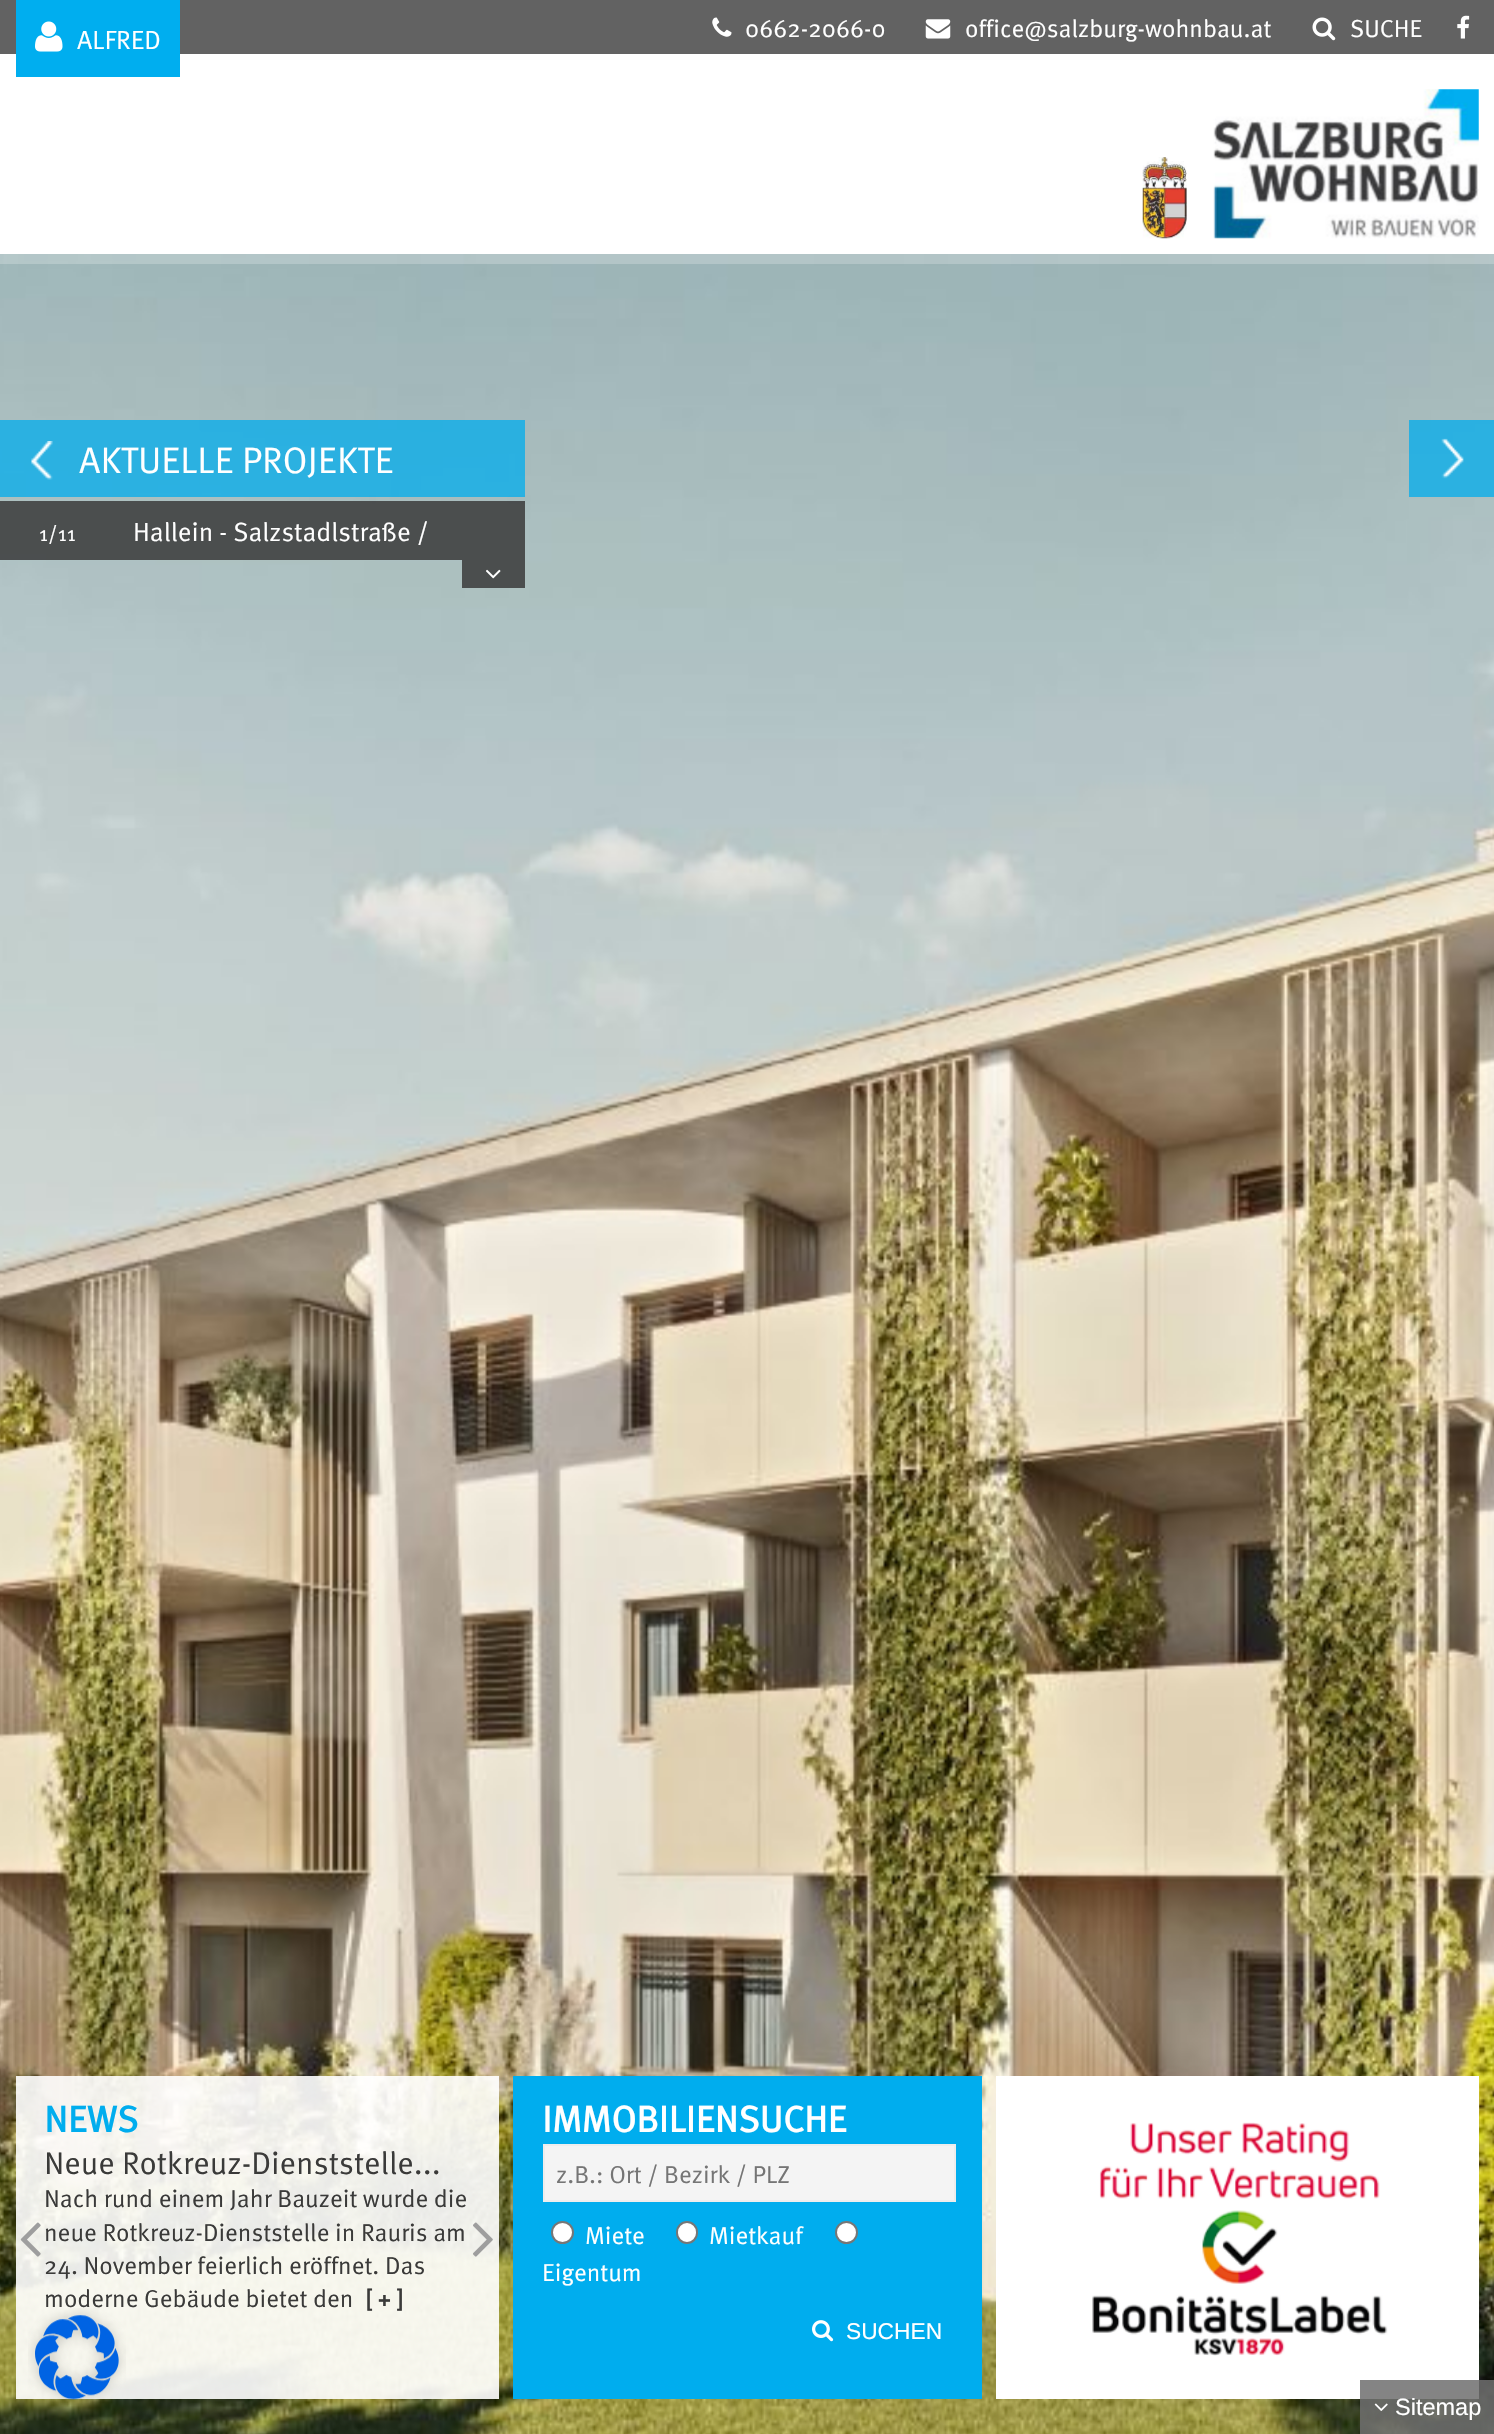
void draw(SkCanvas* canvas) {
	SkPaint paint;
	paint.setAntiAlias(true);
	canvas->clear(0xffffffff);
	paint.setColor(0xff626262);
	canvas->drawRect(SkRect::MakeXYWH(0, 0, 1494, 54), paint);
	paint.setColor(0xff00aeef);
	canvas->drawRect(SkRect::MakeXYWH(16, 0, 164, 77), paint);
	canvas->drawImageRect(SkImages::DeferredFromEncodedData(SkData::MakeFromFileName("img1.png")), SkRect::MakeXYWH(35, 21, 28, 31), SkSamplingOptions());
	SkFont f1(fontMgr->matchFamilyStyle("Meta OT", SkFontStyle::Normal()), 26.25);
	f1.setSubpixel(true);
	paint.setColor(0xffffffff);
	canvas->drawString("ALFRED", 77, 49, f1, paint);
	canvas->drawImageRect(SkImages::DeferredFromEncodedData(SkData::MakeFromFileName("img2.png")), SkRect::MakeXYWH(712, 17, 20, 20), SkSamplingOptions());
	SkFont f2(fontMgr->matchFamilyStyle("Meta OT", SkFontStyle::Normal()), 24.5);
	f2.setSubpixel(true);
	canvas->drawString("0662-2066-0", 745, 37, f2, paint);
	canvas->drawImageRect(SkImages::DeferredFromEncodedData(SkData::MakeFromFileName("img3.png")), SkRect::MakeXYWH(925, 19, 26, 20), SkSamplingOptions());
	canvas->drawString("office@salzburg-wohnbau.at", 965, 37, f2, paint);
	canvas->drawImageRect(SkImages::DeferredFromEncodedData(SkData::MakeFromFileName("img4.png")), SkRect::MakeXYWH(1312, 17, 24, 24), SkSamplingOptions());
	canvas->drawString("SUCHE", 1350, 37, f2, paint);
	canvas->drawImageRect(SkImages::DeferredFromEncodedData(SkData::MakeFromFileName("img5.png")), SkRect::MakeXYWH(1457, 15, 13, 24), SkSamplingOptions());
	canvas->drawImageRect(SkImages::DeferredFromEncodedData(SkData::MakeFromFileName("img6.png")), SkRect::MakeXYWH(1142, 157, 45, 82), SkSamplingOptions());
	canvas->drawImageRect(SkImages::DeferredFromEncodedData(SkData::MakeFromFileName("img7.png")), SkRect::MakeXYWH(1213, 89, 266, 150), SkSamplingOptions());
	canvas->drawImageRect(SkImages::DeferredFromEncodedData(SkData::MakeFromFileName("img16.png")), SkRect::MakeXYWH(0, 254, 1494, 2180), SkSamplingOptions());
	paint.setColor(0x38ffffff);
	canvas->drawRect(SkRect::MakeXYWH(0, 254, 1494, 10), paint);
	paint.setColor(0xbf00acec);
	canvas->drawRect(SkRect::MakeXYWH(0, 420, 525, 77), paint);
	canvas->drawImageRect(SkImages::DeferredFromEncodedData(SkData::MakeFromFileName("img8.png")), SkRect::MakeXYWH(31, 441, 22, 39), SkSamplingOptions());
	SkFont f3(fontMgr->matchFamilyStyle("Meta OT", SkFontStyle::Normal()), 36.75);
	f3.setSubpixel(true);
	paint.setColor(0xffffffff);
	canvas->drawString("AKTUELLE PROJEKTE", 79, 473, f3, paint);
	paint.setColor(0xbf00acec);
	canvas->drawRect(SkRect::MakeXYWH(1409, 420, 85, 77), paint);
	canvas->drawImageRect(SkImages::DeferredFromEncodedData(SkData::MakeFromFileName("img9.png")), SkRect::MakeXYWH(1441, 438, 23, 41), SkSamplingOptions());
	paint.setColor(0xd93a3a39);
	canvas->drawRect(SkRect::MakeXYWH(0, 501, 525, 59), paint);
	SkFont f4(fontMgr->matchFamilyStyle("Meta OT", SkFontStyle::Normal()), 21);
	f4.setSubpixel(true);
	paint.setColor(0xffffffff);
	canvas->drawString("1/11", 39, 541, f4, paint);
	canvas->drawString("Hallein - Salzstadlstraße /", 133, 541, f1, paint);
	paint.setColor(0xd93a3a39);
	canvas->drawRect(SkRect::MakeXYWH(462, 560, 63, 28), paint);
	canvas->drawImageRect(SkImages::DeferredFromEncodedData(SkData::MakeFromFileName("img10.png")), SkRect::MakeXYWH(486, 569, 15, 10), SkSamplingOptions());
	paint.setColor(0xe6ffffff);
	canvas->drawRect(SkRect::MakeXYWH(16, 2076, 483, 323), paint);
	SkFont f5(fontMgr->matchFamilyStyle("Meta OT", SkFontStyle::Bold()), 36.75);
	f5.setSubpixel(true);
	paint.setColor(0xff00adee);
	canvas->drawString("NEWS", 44, 2132, f5, paint);
	canvas->drawImageRect(SkImages::DeferredFromEncodedData(SkData::MakeFromFileName("img11.png")), SkRect::MakeXYWH(20, 2222, 21, 35), SkSamplingOptions());
	SkFont f6(fontMgr->matchFamilyStyle("Meta OT", SkFontStyle::Normal()), 31.5);
	f6.setSubpixel(true);
	paint.setColor(0xff3a3a39);
	canvas->drawString("Neue Rotkreuz-Dienststelle...", 44, 2174, f6, paint);
	canvas->drawString("Nach rund einem Jahr Bauzeit wurde die", 44, 2207, f2, paint);
	canvas->drawString("neue Rotkreuz-Dienststelle in Rauris am", 44, 2241, f2, paint);
	canvas->drawString("24. November feierlich eröffnet. Das", 44, 2274, f2, paint);
	canvas->drawString("moderne Gebäude bietet den", 44, 2307, f2, paint);
	SkFont f7(fontMgr->matchFamilyStyle("Meta OT", SkFontStyle::Bold()), 24.5);
	f7.setSubpixel(true);
	canvas->drawString("[ + ]", 365, 2307, f7, paint);
	canvas->drawImageRect(SkImages::DeferredFromEncodedData(SkData::MakeFromFileName("img12.png")), SkRect::MakeXYWH(473, 2222, 20, 35), SkSamplingOptions());
	paint.setColor(0xff00adee);
	canvas->drawRect(SkRect::MakeXYWH(513, 2076, 469, 323), paint);
	paint.setColor(0xffffffff);
	canvas->drawString("IMMOBILIENSUCHE", 542, 2132, f5, paint);
	paint.setColor(0xfff4f4f4);
	canvas->drawRect(SkRect::MakeXYWH(544, 2145, 411, 56), paint);
	paint.setStroke(true);
	paint.setStrokeWidth(2);
	paint.setColor(0xffededed);
	canvas->drawRect(SkRect::MakeXYWH(544, 2145, 411, 56), paint);
	paint.setStroke(false);
	paint.setColor(0xff757575);
	canvas->drawString("z.B.: Ort / Bezirk / PLZ", 556, 2183, f2, paint);
	paint.setColor(0xffffffff);
	canvas->drawCircle(562.5, 2232.5, 10.5, paint);
	paint.setStroke(true);
	paint.setColor(0xff767676);
	canvas->drawCircle(562.5, 2232.5, 10.5, paint);
	paint.setStroke(false);
	paint.setColor(0xffffffff);
	canvas->drawString("Miete", 585, 2244, f2, paint);
	canvas->drawRoundRect(SkRect::MakeXYWH(677, 2222, 20, 21), 10, 10, paint);
	paint.setStroke(true);
	paint.setColor(0xff767676);
	canvas->drawRoundRect(SkRect::MakeXYWH(677, 2222, 20, 21), 10, 10, paint);
	paint.setStroke(false);
	paint.setColor(0xffffffff);
	canvas->drawString("Mietkauf", 709, 2244, f2, paint);
	canvas->drawCircle(846.5, 2232.5, 10.5, paint);
	paint.setStroke(true);
	paint.setColor(0xff767676);
	canvas->drawCircle(846.5, 2232.5, 10.5, paint);
	paint.setStroke(false);
	paint.setColor(0xffffffff);
	canvas->drawString("Eigentum", 542, 2281, f2, paint);
	canvas->drawImageRect(SkImages::DeferredFromEncodedData(SkData::MakeFromFileName("img13.png")), SkRect::MakeXYWH(812, 2320, 22, 22), SkSamplingOptions());
	SkFont f8(fontMgr->matchFamilyStyle("Liberation Sans", SkFontStyle::Normal()), 22.75);
	f8.setSubpixel(true);
	canvas->drawString("SUCHEN", 846, 2339, f8, paint);
	canvas->drawRect(SkRect::MakeXYWH(996, 2076, 483, 323), paint);
	canvas->drawImageRect(SkImages::DeferredFromEncodedData(SkData::MakeFromFileName("img14.png")), SkRect::MakeXYWH(1092, 2122, 296, 234), SkSamplingOptions());
	paint.setColor(0xd96e6e6e);
	canvas->drawRect(SkRect::MakeXYWH(1360, 2380, 134, 54), paint);
	canvas->drawImageRect(SkImages::DeferredFromEncodedData(SkData::MakeFromFileName("img15.png")), SkRect::MakeXYWH(1374, 2403, 14, 8), SkSamplingOptions());
	SkFont f9(fontMgr->matchFamilyStyle("Liberation Sans", SkFontStyle::Normal()), 23.5);
	f9.setSubpixel(true);
	paint.setColor(0xffffffff);
	canvas->drawString("Sitemap", 1395, 2415, f9, paint);
	canvas->drawImageRect(SkImages::DeferredFromEncodedData(SkData::MakeFromFileName("img17.png")), SkRect::MakeXYWH(28, 2308, 98, 97), SkSamplingOptions());
}
